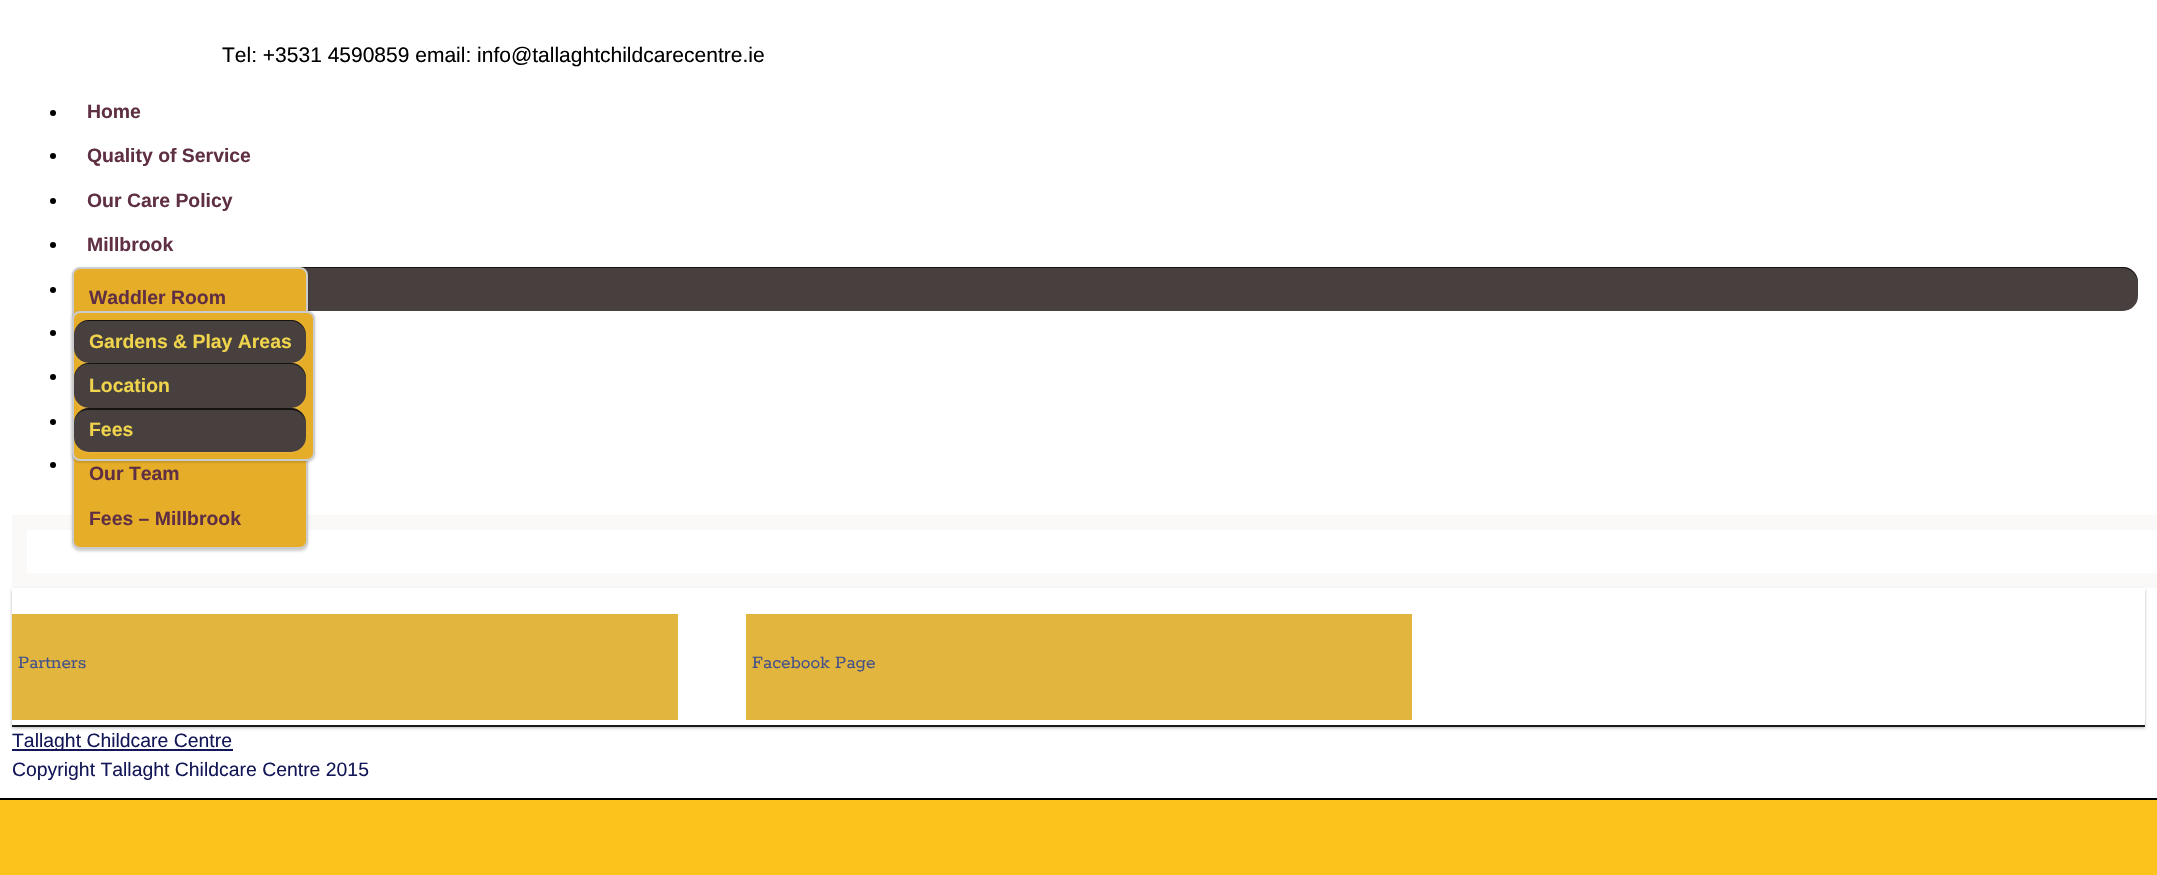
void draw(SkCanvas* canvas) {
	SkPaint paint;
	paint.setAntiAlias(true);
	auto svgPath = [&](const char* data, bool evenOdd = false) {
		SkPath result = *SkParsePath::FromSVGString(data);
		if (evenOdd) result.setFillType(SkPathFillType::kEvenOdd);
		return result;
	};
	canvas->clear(0xffffffff);
	SkFont f1(fontMgr->matchFamilyStyle("Liberation Sans", SkFontStyle::Normal()), 21);
	f1.setSubpixel(true);
	paint.setColor(0xff000000);
	canvas->drawString("Tel: +3531 4590859 email: info@tallaghtchildcarecentre.ie", 222, 62, f1, paint);
	canvas->drawCircle(53, 113, 3, paint);
	SkFont f2(fontMgr->matchFamilyStyle("Liberation Sans", SkFontStyle::Bold()), 19.4);
	f2.setSubpixel(true);
	paint.setColor(0xff5f2f43);
	canvas->drawString("Home", 87, 118, f2, paint);
	paint.setColor(0xff000000);
	canvas->drawCircle(53, 156, 3, paint);
	paint.setColor(0xff5f2f43);
	canvas->drawString("Quality of Service", 87, 162, f2, paint);
	paint.setColor(0xff000000);
	canvas->drawCircle(53, 201, 3, paint);
	paint.setColor(0xff5f2f43);
	canvas->drawString("Our Care Policy", 87, 207, f2, paint);
	paint.setColor(0xff000000);
	canvas->drawCircle(53, 333, 3, paint);
	canvas->drawCircle(53, 245, 3, paint);
	paint.setColor(0xff5f2f43);
	canvas->drawString("Millbrook", 87, 251, f2, paint);
	paint.setColor(0xff47403f);
	canvas->drawRoundRect(SkRect::MakeXYWH(72, 267, 2066, 44), 15, 15, paint);
	paint.setColor(0xb3000000);
	canvas->drawPath(svgPath("M87 268H2122C2131 268 2138 275 2138 284V282C2138 274 2131 267 2123 267H87C79 267 72 274 72 282V284C72 275 79 268 87 268Z"), paint);
	paint.setColor(0xfffbf8f8);
	canvas->drawRect(SkRect::MakeXYWH(12, 515, 2145, 73), paint);
	paint.setColor(0xffffffff);
	canvas->drawRect(SkRect::MakeXYWH(27, 530, 2130, 43), paint);
	paint.setColor(0x33000000);
	paint.setMaskFilter(SkMaskFilter::MakeBlur(kNormal_SkBlurStyle, 1.5));
	canvas->drawRoundRect(SkRect::MakeXYWH(72, 269, 236, 282), 8, 8, paint);
	paint.setMaskFilter(nullptr);
	paint.setColor(0xffe6ad29);
	canvas->drawRoundRect(SkRect::MakeXYWH(73, 268, 234, 280), 7, 7, paint);
	paint.setStroke(true);
	paint.setStrokeWidth(2);
	paint.setColor(0xffcccccc);
	canvas->drawRoundRect(SkRect::MakeXYWH(73, 268, 234, 280), 7, 7, paint);
	paint.setStroke(false);
	paint.setColor(0xff5f2f43);
	canvas->drawString("Waddler Room", 89, 304, f2, paint);
	canvas->drawString("Our Team", 89, 480, f2, paint);
	canvas->drawString("Fees – Millbrook", 89, 525, f2, paint);
	paint.setColor(0xff000000);
	canvas->drawCircle(53, 377, 3, paint);
	canvas->drawCircle(53, 290, 3, paint);
	paint.setColor(0x33000000);
	paint.setMaskFilter(SkMaskFilter::MakeBlur(kNormal_SkBlurStyle, 1.5));
	canvas->drawRoundRect(SkRect::MakeXYWH(72, 312, 243, 150), 8, 8, paint);
	paint.setMaskFilter(nullptr);
	paint.setColor(0xffe6ad29);
	canvas->drawRoundRect(SkRect::MakeXYWH(73, 312, 241, 148), 7, 7, paint);
	paint.setStroke(true);
	paint.setColor(0xffcccccc);
	canvas->drawRoundRect(SkRect::MakeXYWH(73, 312, 241, 148), 7, 7, paint);
	paint.setStroke(false);
	paint.setColor(0xffe9b53e);
	canvas->drawPath(svgPath("M74 353C75 360 82 365 89 365H291C299 365 306 358 306 350V348C306 356 299 363 291 363H88C82 363 76 359 74 353Z"), paint);
	paint.setColor(0xff47403f);
	canvas->drawRoundRect(SkRect::MakeXYWH(74, 320, 232, 43), 15, 15, paint);
	paint.setColor(0xb3000000);
	canvas->drawPath(svgPath("M88 321H291C299 321 306 328 306 336V335C306 327 299 320 291 320H89C81 320 74 327 74 335V336C74 328 80 321 88 321Z"), paint);
	paint.setColor(0xffefd44c);
	canvas->drawString("Gardens & Play Areas", 89, 348, f2, paint);
	paint.setColor(0xffe9b53e);
	canvas->drawPath(svgPath("M74 398C75 405 82 410 89 410H291C299 410 306 403 306 395V393C306 401 299 408 291 408H88C82 408 76 404 74 398Z"), paint);
	paint.setColor(0xff47403f);
	canvas->drawRoundRect(SkRect::MakeXYWH(74, 363, 232, 45), 15, 15, paint);
	paint.setColor(0xb3000000);
	canvas->drawPath(svgPath("M88 364H291C299 364 306 371 306 380V378C306 370 299 363 291 363H89C81 363 74 370 74 378V380C74 371 80 364 88 364Z"), paint);
	paint.setColor(0xffefd44c);
	canvas->drawString("Location", 89, 392, f2, paint);
	paint.setColor(0xffe9b53e);
	canvas->drawPath(svgPath("M75 442C76 448 82 453 89 453H291C299 453 306 446 306 438V436C306 445 299 452 291 452H88C82 452 77 448 75 442Z"), paint);
	paint.setColor(0xff47403f);
	canvas->drawRoundRect(SkRect::MakeXYWH(74, 408, 232, 44), 15, 15, paint);
	paint.setColor(0xb3000000);
	canvas->drawPath(svgPath("M88 410H291C299 410 306 416 306 424V423C306 415 299 408 291 408H89C81 408 74 415 74 423V424C74 416 80 410 88 410Z"), paint);
	paint.setColor(0xffefd44c);
	canvas->drawString("Fees", 89, 436, f2, paint);
	paint.setColor(0xff000000);
	canvas->drawCircle(53, 422, 3, paint);
	canvas->drawCircle(53, 465, 3, paint);
	paint.setColor(0xfffcc31d);
	canvas->drawRect(SkRect::MakeXYWH(0, 800, 2157, 75), paint);
	paint.setColor(0xff000000);
	canvas->drawRect(SkRect::MakeXYWH(0, 798, 2157, 2), paint);
	canvas->save();
	canvas->clipPath(svgPath("M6 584H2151V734H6ZM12 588H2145V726H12Z", true), true);
	paint.setColor(0x45000000);
	paint.setMaskFilter(SkMaskFilter::MakeBlur(kNormal_SkBlurStyle, 1.5));
	canvas->drawRect(SkRect::MakeXYWH(12, 590, 2133, 138), paint);
	paint.setMaskFilter(nullptr);
	canvas->restore();
	paint.setColor(0xff1a1a1a);
	canvas->drawRect(SkRect::MakeXYWH(12, 725, 2133, 2), paint);
	paint.setColor(0xffe1b53e);
	canvas->drawRect(SkRect::MakeXYWH(12, 614, 666, 106), paint);
	SkFont f3(fontMgr->matchFamilyStyle("Rokkitt", SkFontStyle(600, SkFontStyle::kNormal_Width, SkFontStyle::kUpright_Slant)), 19.4);
	f3.setSubpixel(true);
	paint.setColor(0xff445189);
	canvas->drawString("Partners", 18, 668, f3, paint);
	paint.setColor(0xffe1b53e);
	canvas->drawRect(SkRect::MakeXYWH(746, 614, 666, 106), paint);
	paint.setColor(0xff445189);
	canvas->drawString("Facebook Page", 752, 668, f3, paint);
	paint.setColor(0xff131757);
	canvas->drawRect(SkRect::MakeXYWH(12, 749, 221, 2), paint);
	SkFont f4(fontMgr->matchFamilyStyle("Liberation Sans", SkFontStyle::Normal()), 19.4);
	f4.setSubpixel(true);
	canvas->drawString("Tallaght Childcare Centre", 12, 747, f4, paint);
	canvas->drawString("Copyright Tallaght Childcare Centre 2015", 12, 776, f4, paint);
}
